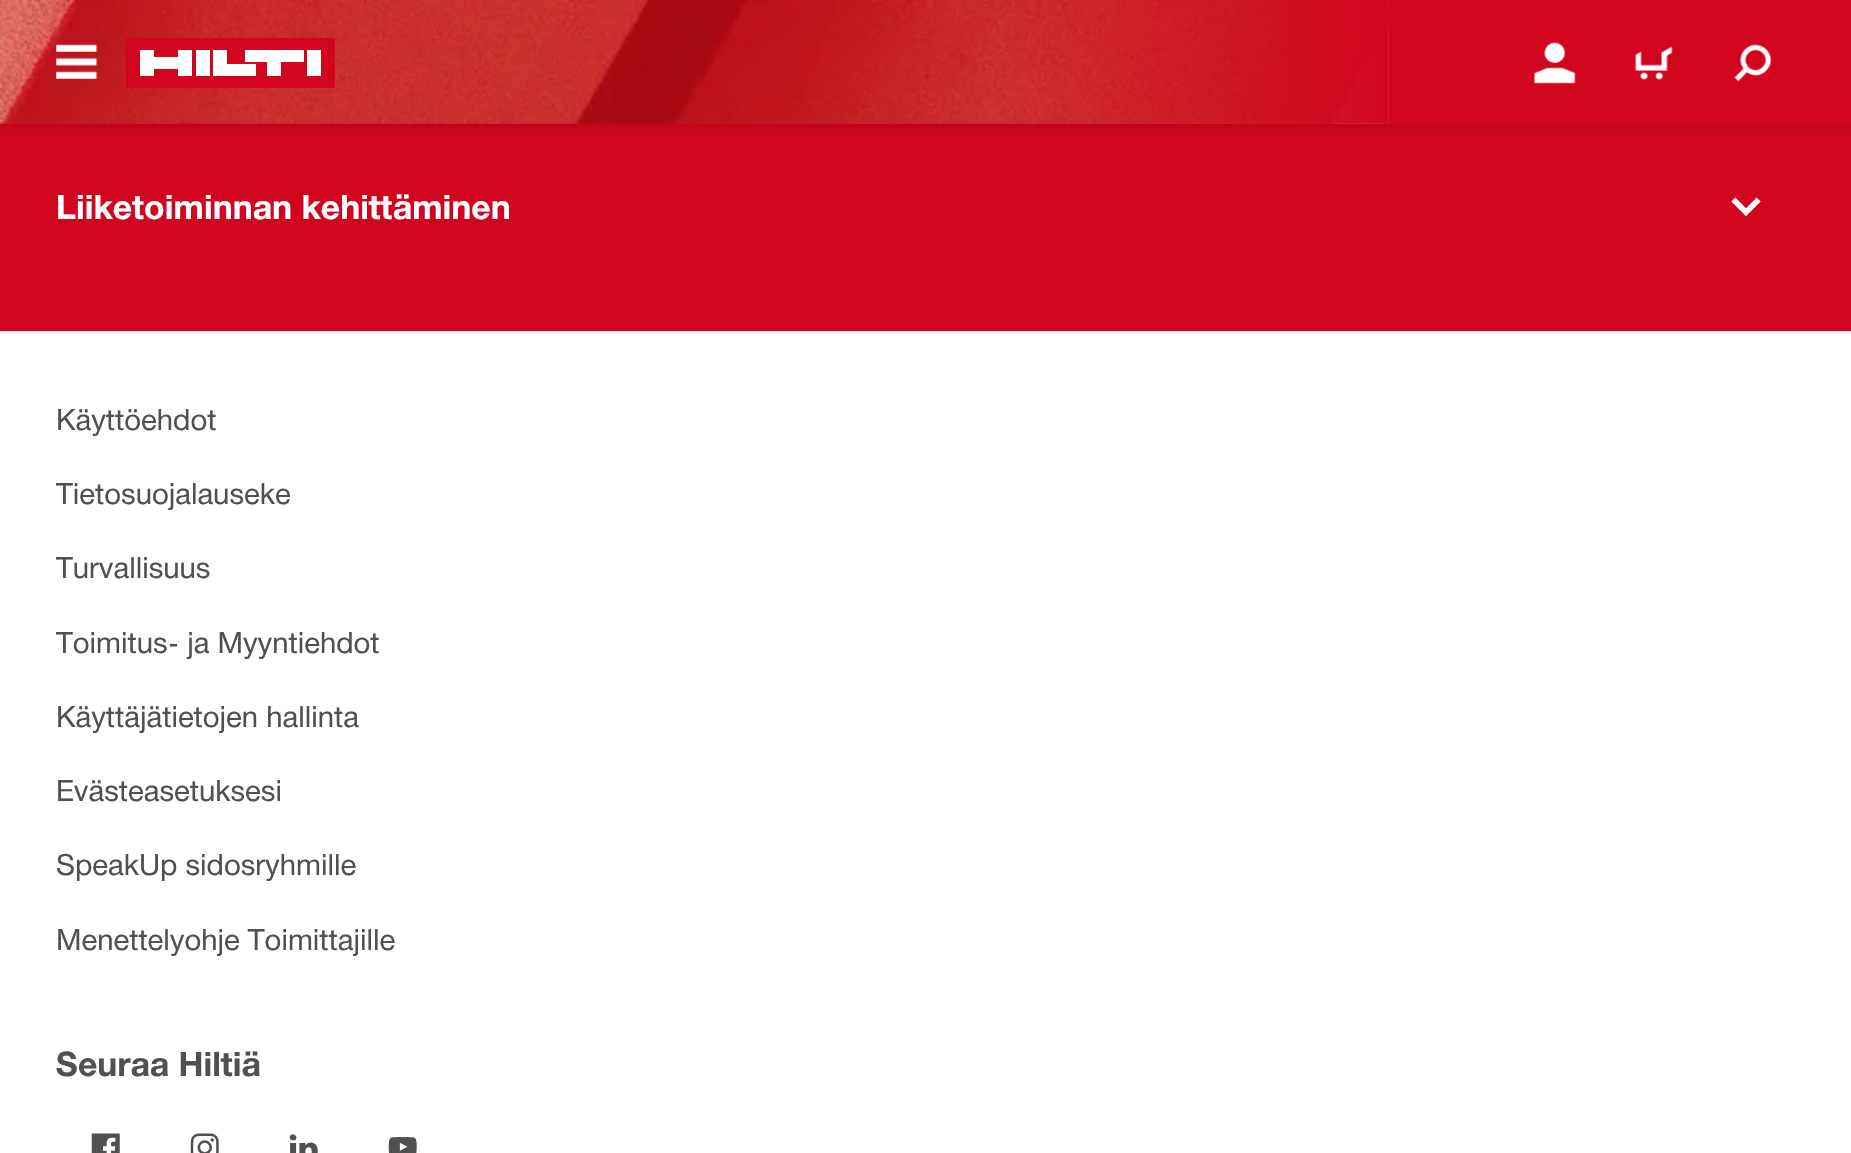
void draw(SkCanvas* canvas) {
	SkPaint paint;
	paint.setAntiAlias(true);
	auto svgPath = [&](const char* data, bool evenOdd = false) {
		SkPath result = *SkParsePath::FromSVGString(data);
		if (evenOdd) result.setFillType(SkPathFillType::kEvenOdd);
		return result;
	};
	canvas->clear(0xffffffff);
	{
		const SkColor colors[] = {0xffbd051c, 0xffd2051e};
		const float stops[] = {0, 0.55};
		const SkPoint ends[] = {{926, -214}, {926, 331}};
		paint.setShader(SkGradientShader::MakeLinear(ends, colors, stops, 2, SkTileMode::kClamp));
		paint.setAlpha(255);
	}
	canvas->drawRect(SkRect::MakeXYWH(0, 124, 1851, 207), paint);
	paint.setShader(nullptr);
	paint.setColor(0x26000000);
	paint.setMaskFilter(SkMaskFilter::MakeBlur(kNormal_SkBlurStyle, 11));
	canvas->drawRect(SkRect::MakeXYWH(-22, -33, 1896, 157), paint);
	paint.setMaskFilter(nullptr);
	paint.setColor(0xffd2051e);
	canvas->drawRect(SkRect::MakeXYWH(0, 0, 1851, 124), paint);
	canvas->drawImageRect(SkImages::DeferredFromEncodedData(SkData::MakeFromFileName("img1.png")), SkRect::MakeXYWH(0, 0, 1389, 124), SkSamplingOptions());
	canvas->drawImageRect(SkImages::DeferredFromEncodedData(SkData::MakeFromFileName("img2.png")), SkRect::MakeXYWH(56, 44, 42, 35), SkSamplingOptions());
	canvas->drawRect(SkRect::MakeXYWH(126, 38, 209, 50), paint);
	paint.setColor(0xffffffff);
	canvas->drawPath(svgPath("M210 76H196V50H210ZM321 50H307V76H321ZM140 76H154V69H178V76H192V50H178V57H154V50H140ZM213 76H256V64H227V50H213ZM245 62H267V76H281V62H304V50H245Z"), paint);
	canvas->drawImageRect(SkImages::DeferredFromEncodedData(SkData::MakeFromFileName("img3.png")), SkRect::MakeXYWH(1534, 42, 42, 42), SkSamplingOptions());
	canvas->drawImageRect(SkImages::DeferredFromEncodedData(SkData::MakeFromFileName("img4.png")), SkRect::MakeXYWH(1635, 46, 38, 34), SkSamplingOptions());
	canvas->drawImageRect(SkImages::DeferredFromEncodedData(SkData::MakeFromFileName("img5.png")), SkRect::MakeXYWH(1734, 44, 38, 38), SkSamplingOptions());
	SkFont f1(fontMgr->matchFamilyStyle("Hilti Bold", SkFontStyle::Bold()), 33.75);
	f1.setSubpixel(true);
	canvas->drawString("Liiketoiminnan kehittäminen", 56, 219, f1, paint);
	canvas->drawImageRect(SkImages::DeferredFromEncodedData(SkData::MakeFromFileName("img6.png")), SkRect::MakeXYWH(1731, 197, 30, 20), SkSamplingOptions());
	SkFont f2(fontMgr->matchFamilyStyle("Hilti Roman", SkFontStyle::Normal()), 29.25);
	f2.setSubpixel(true);
	paint.setColor(0xff524f53);
	canvas->drawString("Käyttöehdot", 56, 430, f2, paint);
	canvas->drawString("Tietosuojalauseke", 56, 504, f2, paint);
	canvas->drawString("Turvallisuus", 56, 578, f2, paint);
	canvas->drawString("Toimitus- ja Myyntiehdot", 56, 653, f2, paint);
	canvas->drawString("Käyttäjätietojen hallinta", 56, 727, f2, paint);
	canvas->drawString("Evästeasetuksesi", 56, 801, f2, paint);
	canvas->drawString("SpeakUp sidosryhmille", 56, 875, f2, paint);
	canvas->drawString("Menettelyohje Toimittajille", 56, 950, f2, paint);
	canvas->drawString("Seuraa Hiltiä", 56, 1076, f1, paint);
	canvas->drawImageRect(SkImages::DeferredFromEncodedData(SkData::MakeFromFileName("img7.png")), SkRect::MakeXYWH(91, 1133, 29, 20), SkSamplingOptions());
	canvas->drawImageRect(SkImages::DeferredFromEncodedData(SkData::MakeFromFileName("img8.png")), SkRect::MakeXYWH(190, 1133, 29, 20), SkSamplingOptions());
	canvas->drawImageRect(SkImages::DeferredFromEncodedData(SkData::MakeFromFileName("img9.png")), SkRect::MakeXYWH(289, 1134, 29, 19), SkSamplingOptions());
	canvas->drawImageRect(SkImages::DeferredFromEncodedData(SkData::MakeFromFileName("img10.png")), SkRect::MakeXYWH(388, 1137, 29, 16), SkSamplingOptions());
}
